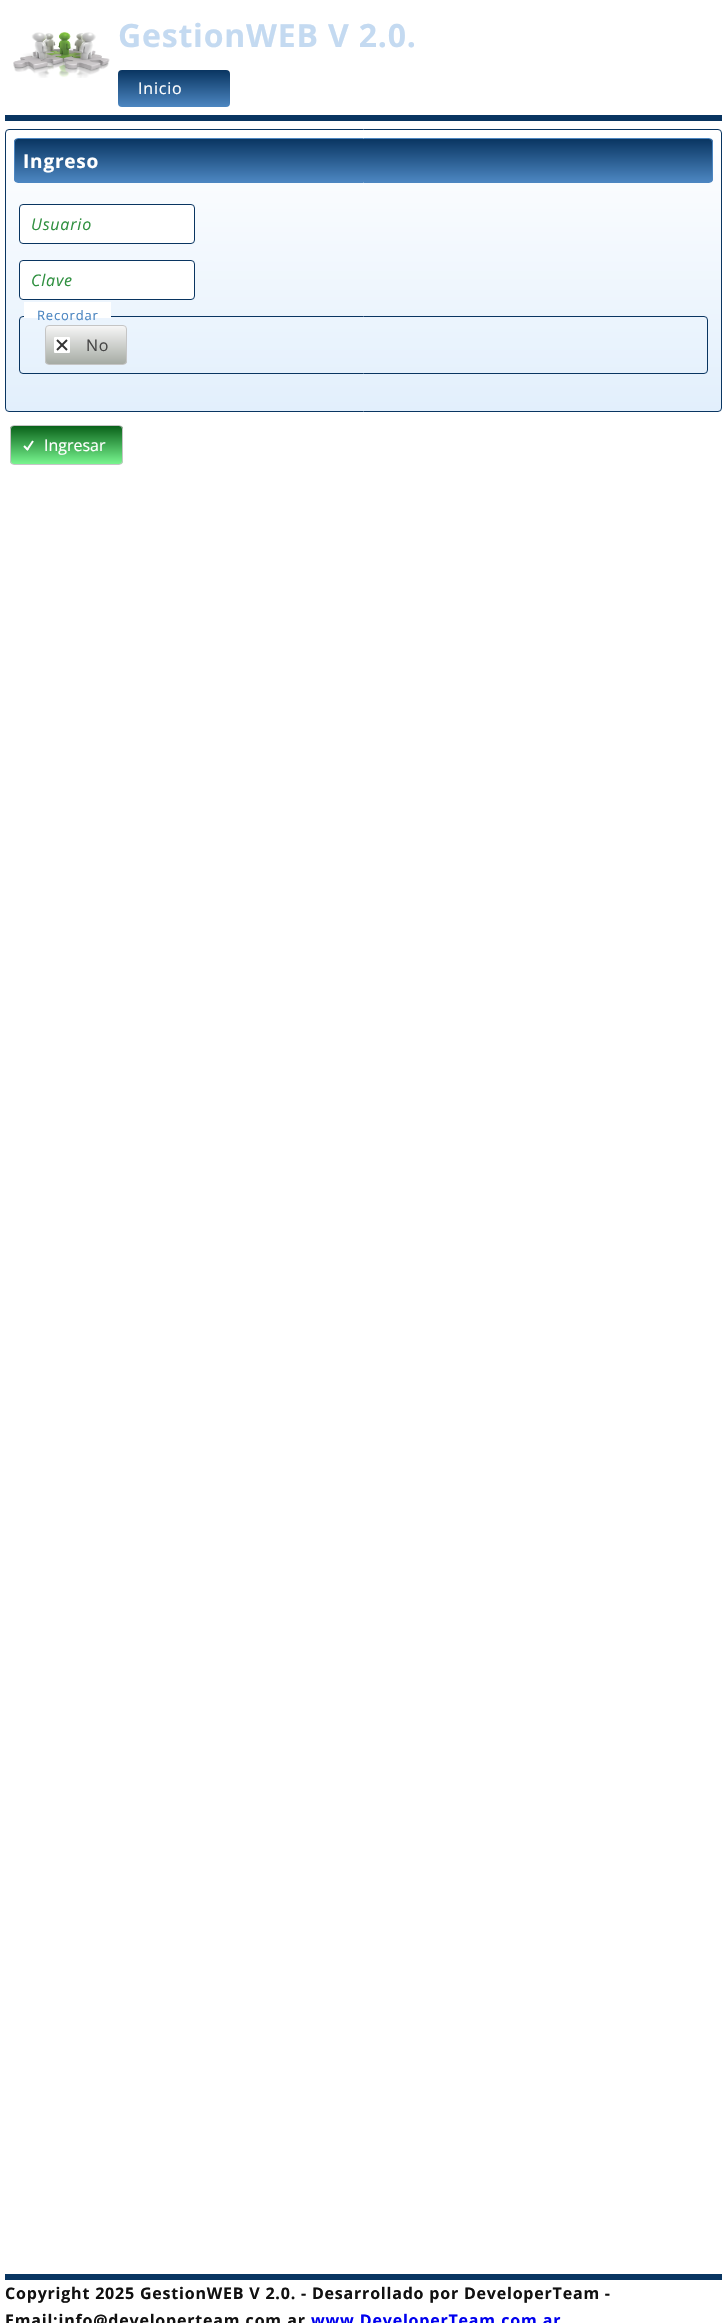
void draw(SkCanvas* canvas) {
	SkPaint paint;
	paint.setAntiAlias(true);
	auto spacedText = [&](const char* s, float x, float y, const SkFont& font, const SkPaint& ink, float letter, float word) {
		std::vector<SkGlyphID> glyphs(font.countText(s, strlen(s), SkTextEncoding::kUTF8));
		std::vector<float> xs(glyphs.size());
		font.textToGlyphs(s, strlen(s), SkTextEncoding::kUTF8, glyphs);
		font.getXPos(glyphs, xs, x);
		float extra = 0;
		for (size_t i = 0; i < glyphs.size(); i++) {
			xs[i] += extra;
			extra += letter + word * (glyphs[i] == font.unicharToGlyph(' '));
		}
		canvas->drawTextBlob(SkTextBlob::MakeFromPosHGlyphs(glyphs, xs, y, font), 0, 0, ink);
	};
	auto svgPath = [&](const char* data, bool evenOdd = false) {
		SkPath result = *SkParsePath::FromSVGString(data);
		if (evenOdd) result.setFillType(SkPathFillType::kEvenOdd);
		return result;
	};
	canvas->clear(0xffffffff);
	paint.setColor(0xff093561);
	canvas->drawRect(SkRect::MakeXYWH(5, 115, 717, 6), paint);
	canvas->drawImageRect(SkImages::DeferredFromEncodedData(SkData::MakeFromFileName("img1.png")), SkRect::MakeXYWH(13, 32, 97, 46), SkSamplingOptions());
	SkFont f1(fontMgr->matchFamilyStyle("Open Sans", SkFontStyle::Bold()), 32);
	f1.setSubpixel(true);
	paint.setColor(0xffc4daf1);
	spacedText("GestionWEB V 2.0.", 118, 47, f1, paint, 0.8, 0);
	{
		const SkColor colors[] = {0xff4c86c1, 0xff093561};
		const float stops[] = {0, 1};
		const SkPoint ends[] = {{174, 107}, {174, 70}};
		paint.setShader(SkGradientShader::MakeLinear(ends, colors, stops, 2, SkTileMode::kClamp));
		paint.setAlpha(255);
	}
	canvas->drawRoundRect(SkRect::MakeXYWH(118, 70, 112, 37), 4, 4, paint);
	SkFont f2(fontMgr->matchFamilyStyle("Open Sans", SkFontStyle::Normal()), 16);
	f2.setSubpixel(true);
	paint.setShader(nullptr);
	paint.setColor(0xffffffff);
	spacedText("Inicio", 138, 94, f2, paint, 0.8, 0);
	canvas->save();
	canvas->clipPath(svgPath("M9 129H718C720 129 722 131 722 133V408C722 410 720 412 718 412H9C7 412 5 410 5 408V133C5 131 7 129 9 129Z"), true);
	{
		const SkColor colors[] = {0xffe2effc, 0xffffffff};
		const float stops[] = {0, 1};
		const SkPoint ends[] = {{364, 411}, {364, 130}};
		paint.setShader(SkGradientShader::MakeLinear(ends, colors, stops, 2, SkTileMode::kClamp));
		paint.setAlpha(255);
	}
	canvas->drawRect(SkRect::MakeXYWH(5, 130, 717, 281), paint);
	canvas->restore();
	paint.setStroke(true);
	paint.setStrokeWidth(1);
	paint.setShader(nullptr);
	paint.setColor(0xff093561);
	canvas->drawRoundRect(SkRect::MakeXYWH(5.5, 129.5, 716, 282), 3.5, 3.5, paint);
	canvas->save();
	canvas->clipPath(svgPath("M18 138H709C711 138 713 140 713 142V179C713 181 711 183 709 183H18C16 183 14 181 14 179V142C14 140 16 138 18 138Z"), true);
	paint.setStroke(false);
	{
		const SkColor colors[] = {0xff4c86c1, 0xff093561};
		const float stops[] = {0, 1};
		const SkPoint ends[] = {{364, 182}, {364, 139}};
		paint.setShader(SkGradientShader::MakeLinear(ends, colors, stops, 2, SkTileMode::kClamp));
		paint.setAlpha(255);
	}
	canvas->drawRect(SkRect::MakeXYWH(14, 139, 699, 43), paint);
	canvas->restore();
	paint.setStroke(true);
	paint.setShader(nullptr);
	paint.setColor(0xff4c86c1);
	canvas->drawRoundRect(SkRect::MakeXYWH(14.5, 138.5, 698, 44), 3.5, 3.5, paint);
	SkFont f3(fontMgr->matchFamilyStyle("Open Sans", SkFontStyle::Bold()), 19);
	f3.setSubpixel(true);
	paint.setStroke(false);
	paint.setColor(0xffffffff);
	spacedText("Ingreso", 23, 168, f3, paint, 0.8, 0);
	canvas->drawRoundRect(SkRect::MakeXYWH(19.5, 204.5, 175, 39), 3.5, 3.5, paint);
	paint.setStroke(true);
	paint.setColor(0xff093561);
	canvas->drawRoundRect(SkRect::MakeXYWH(19.5, 204.5, 175, 39), 3.5, 3.5, paint);
	SkFont f4(fontMgr->matchFamilyStyle("Open Sans", SkFontStyle::Italic()), 16);
	f4.setSubpixel(true);
	paint.setStroke(false);
	paint.setColor(0xff2f9040);
	spacedText("Usuario", 31, 230, f4, paint, 0.8, 0);
	paint.setColor(0xffffffff);
	canvas->drawRoundRect(SkRect::MakeXYWH(19.5, 260.5, 175, 39), 3.5, 3.5, paint);
	paint.setStroke(true);
	paint.setColor(0xff093561);
	canvas->drawRoundRect(SkRect::MakeXYWH(19.5, 260.5, 175, 39), 3.5, 3.5, paint);
	paint.setStroke(false);
	paint.setColor(0xff2f9040);
	spacedText("Clave", 31, 286, f4, paint, 0.8, 0);
	paint.setStroke(true);
	paint.setColor(0xff093561);
	canvas->drawRoundRect(SkRect::MakeXYWH(19.5, 316.5, 688, 57), 3.5, 3.5, paint);
	paint.setStroke(false);
	paint.setColor(0xffffffff);
	canvas->drawRect(SkRect::MakeXYWH(24, 302, 87, 16), paint);
	SkFont f5(fontMgr->matchFamilyStyle("Open Sans", SkFontStyle::Normal()), 13);
	f5.setSubpixel(true);
	paint.setColor(0xff4c86c1);
	spacedText("Recordar", 37, 320, f5, paint, 0.8, 0);
	canvas->save();
	canvas->clipPath(svgPath("M49 325H123C125 325 127 327 127 329V361C127 363 125 365 123 365H49C47 365 45 363 45 361V329C45 327 47 325 49 325Z"), true);
	{
		const SkColor colors[] = {0xffa6aba4, 0xfff6f6f6};
		const float stops[] = {0, 1};
		const SkPoint ends[] = {{86, 364}, {86, 326}};
		paint.setShader(SkGradientShader::MakeLinear(ends, colors, stops, 2, SkTileMode::kClamp));
		paint.setAlpha(255);
	}
	canvas->drawRect(SkRect::MakeXYWH(45, 326, 82, 38), paint);
	canvas->restore();
	paint.setStroke(true);
	paint.setShader(nullptr);
	paint.setColor(0xffc5c5c5);
	canvas->drawRoundRect(SkRect::MakeXYWH(45.5, 325.5, 81, 39), 3.5, 3.5, paint);
	paint.setStroke(false);
	paint.setColor(0xffffffff);
	canvas->drawRoundRect(SkRect::MakeXYWH(54, 337, 16, 16), 1, 1, paint);
	canvas->drawImageRect(SkImages::DeferredFromEncodedData(SkData::MakeFromFileName("img2.png")), SkRect::MakeXYWH(56, 339, 12, 12), SkSamplingOptions());
	paint.setColor(0xff454545);
	spacedText("No", 86, 351, f2, paint, 0.8, 0);
	canvas->save();
	canvas->clipPath(svgPath("M14 425H119C121 425 123 427 123 429V461C123 463 121 465 119 465H14C12 465 10 463 10 461V429C10 427 12 425 14 425Z"), true);
	{
		const SkColor colors[] = {0xff78f58f, 0xff096119};
		const float stops[] = {0, 1};
		const SkPoint ends[] = {{67, 464}, {67, 426}};
		paint.setShader(SkGradientShader::MakeLinear(ends, colors, stops, 2, SkTileMode::kClamp));
		paint.setAlpha(255);
	}
	canvas->drawRect(SkRect::MakeXYWH(10, 426, 113, 38), paint);
	canvas->restore();
	paint.setStroke(true);
	paint.setShader(nullptr);
	paint.setColor(0xffc5c5c5);
	canvas->drawRoundRect(SkRect::MakeXYWH(10.5, 425.5, 112, 39), 3.5, 3.5, paint);
	canvas->drawImageRect(SkImages::DeferredFromEncodedData(SkData::MakeFromFileName("img3.png")), SkRect::MakeXYWH(23, 440, 11, 11), SkSamplingOptions());
	paint.setStroke(false);
	paint.setColor(0xffffffff);
	canvas->drawString("Ingresar", 44, 451, f2, paint);
	paint.setColor(0xff093561);
	canvas->drawRect(SkRect::MakeXYWH(5, 2274, 717, 6), paint);
	SkFont f6(fontMgr->matchFamilyStyle("Open Sans", SkFontStyle::Bold()), 16);
	f6.setSubpixel(true);
	paint.setColor(0xff111111);
	spacedText("Copyright 2025 GestionWEB V 2.0. - Desarrollado por DeveloperTeam -", 5, 2299, f6, paint, 0.8, 0);
	spacedText("Email:info@developerteam.com.ar", 5, 2326, f6, paint, 0.8, 0);
	paint.setColor(0xff0000ee);
	spacedText("www.DeveloperTeam.com.ar", 311, 2326, f6, paint, 0.8, 0);
}
